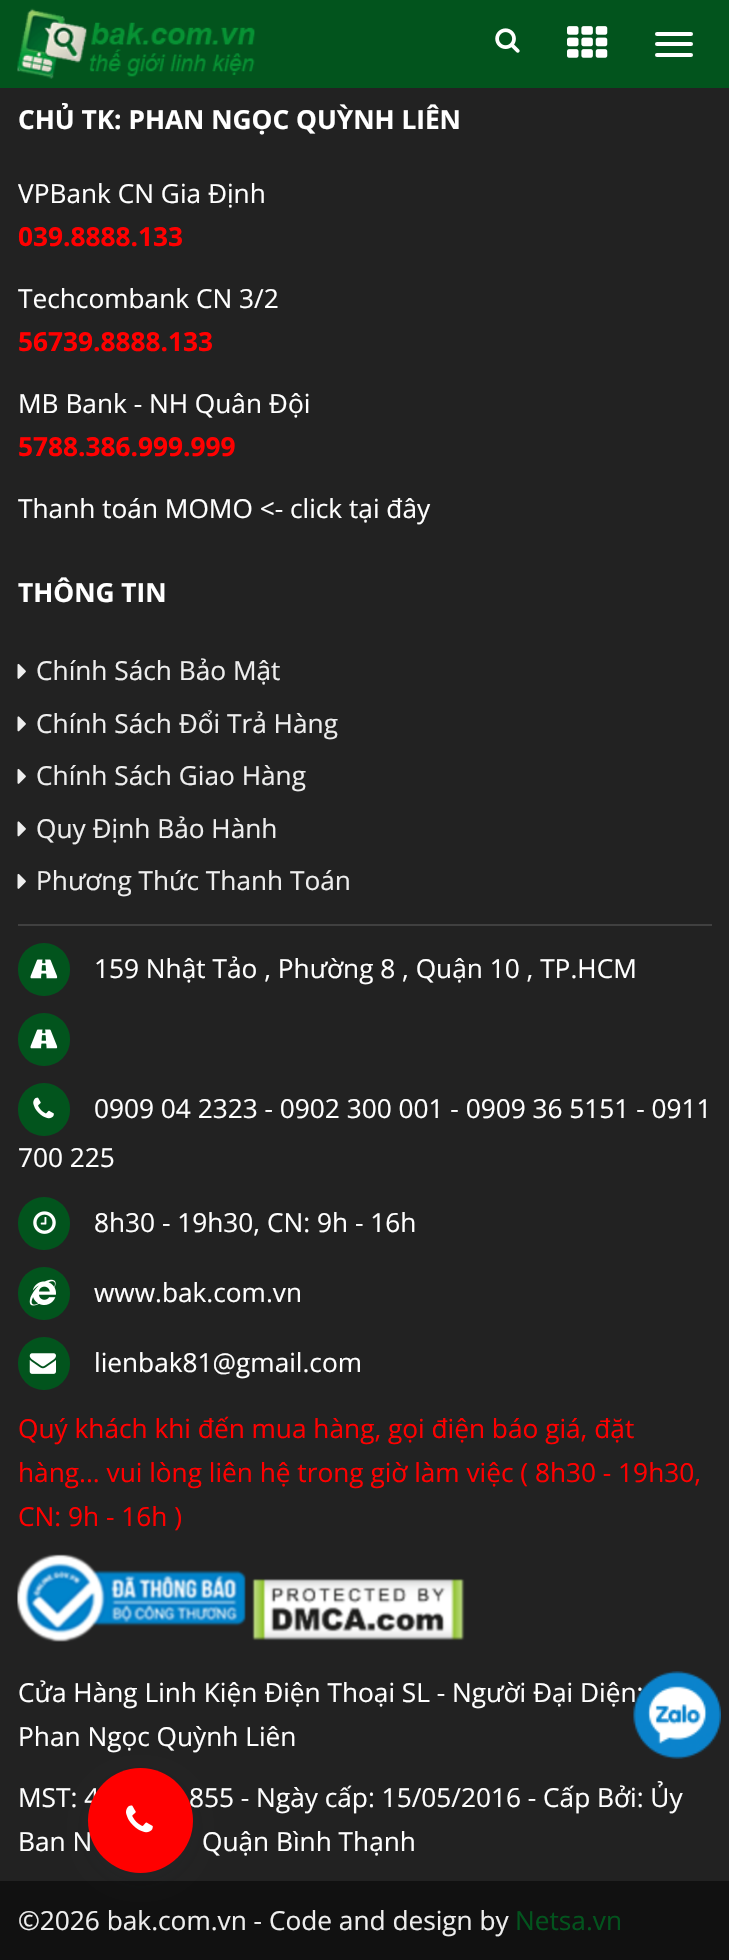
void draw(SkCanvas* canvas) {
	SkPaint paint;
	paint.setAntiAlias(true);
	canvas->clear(0xff222222);
	paint.setColor(0xff02541d);
	canvas->drawRect(SkRect::MakeXYWH(0, 0, 729, 88), paint);
	canvas->drawImageRect(SkImages::DeferredFromEncodedData(SkData::MakeFromFileName("img1.png")), SkRect::MakeXYWH(17, 8, 238, 71), SkSamplingOptions());
	canvas->drawImageRect(SkImages::DeferredFromEncodedData(SkData::MakeFromFileName("img2.png")), SkRect::MakeXYWH(495, 28, 25, 25), SkSamplingOptions());
	canvas->drawImageRect(SkImages::DeferredFromEncodedData(SkData::MakeFromFileName("img3.png")), SkRect::MakeXYWH(567, 26, 41, 32), SkSamplingOptions());
	paint.setColor(0xffffffff);
	canvas->drawRoundRect(SkRect::MakeXYWH(655, 32, 38, 4), 2, 2, paint);
	canvas->drawRoundRect(SkRect::MakeXYWH(655, 42, 38, 4), 2, 2, paint);
	canvas->drawRoundRect(SkRect::MakeXYWH(655, 53, 38, 4), 2, 2, paint);
	SkFont f1(fontMgr->matchFamilyStyle("Open Sans", SkFontStyle::Bold()), 26.25);
	f1.setSubpixel(true);
	canvas->drawString("CHỦ TK: PHAN NGỌC QUỲNH LIÊN", 18, 129, f1, paint);
	SkFont f2(fontMgr->matchFamilyStyle("Open Sans", SkFontStyle::Normal()), 26.25);
	f2.setSubpixel(true);
	canvas->drawString("VPBank CN Gia Định", 18, 203, f2, paint);
	paint.setColor(0xffff0000);
	canvas->drawString("039.8888.133", 18, 246, f1, paint);
	paint.setColor(0xffffffff);
	canvas->drawString("Techcombank CN 3/2", 18, 308, f2, paint);
	paint.setColor(0xffff0000);
	canvas->drawString("56739.8888.133", 18, 351, f1, paint);
	paint.setColor(0xffffffff);
	canvas->drawString("MB Bank - NH Quân Đội", 18, 413, f2, paint);
	paint.setColor(0xffff0000);
	canvas->drawString("5788.386.999.999", 18, 456, f1, paint);
	paint.setColor(0xffffffff);
	canvas->drawString("Thanh toán MOMO <- click tại đây", 18, 518, f2, paint);
	canvas->drawString("THÔNG TIN", 18, 602, f1, paint);
	canvas->drawImageRect(SkImages::DeferredFromEncodedData(SkData::MakeFromFileName("img4.png")), SkRect::MakeXYWH(17, 663, 9, 16), SkSamplingOptions());
	paint.setColor(0xffeeeeee);
	canvas->drawString("Chính Sách Bảo Mật", 36, 680, f2, paint);
	canvas->drawImageRect(SkImages::DeferredFromEncodedData(SkData::MakeFromFileName("img5.png")), SkRect::MakeXYWH(17, 716, 9, 16), SkSamplingOptions());
	canvas->drawString("Chính Sách Đổi Trả Hàng", 36, 733, f2, paint);
	canvas->drawImageRect(SkImages::DeferredFromEncodedData(SkData::MakeFromFileName("img4.png")), SkRect::MakeXYWH(17, 768, 9, 16), SkSamplingOptions());
	canvas->drawString("Chính Sách Giao Hàng", 36, 785, f2, paint);
	canvas->drawImageRect(SkImages::DeferredFromEncodedData(SkData::MakeFromFileName("img5.png")), SkRect::MakeXYWH(17, 821, 9, 16), SkSamplingOptions());
	canvas->drawString("Quy Định Bảo Hành", 36, 838, f2, paint);
	canvas->drawImageRect(SkImages::DeferredFromEncodedData(SkData::MakeFromFileName("img4.png")), SkRect::MakeXYWH(17, 873, 9, 16), SkSamplingOptions());
	canvas->drawString("Phương Thức Thanh Toán", 36, 890, f2, paint);
	paint.setColor(0xff404040);
	canvas->drawRect(SkRect::MakeXYWH(18, 924, 694, 2), paint);
	paint.setColor(0xff02541d);
	canvas->drawRoundRect(SkRect::MakeXYWH(18, 943, 52, 53), 26, 26, paint);
	canvas->drawImageRect(SkImages::DeferredFromEncodedData(SkData::MakeFromFileName("img6.png")), SkRect::MakeXYWH(30, 959, 28, 20), SkSamplingOptions());
	paint.setColor(0xffffffff);
	canvas->drawString("159 Nhật Tảo , Phường 8 , Quận 10 , TP.HCM", 94, 978, f2, paint);
	paint.setColor(0xff02541d);
	canvas->drawRoundRect(SkRect::MakeXYWH(18, 1013, 52, 53), 26, 26, paint);
	canvas->drawImageRect(SkImages::DeferredFromEncodedData(SkData::MakeFromFileName("img6.png")), SkRect::MakeXYWH(30, 1029, 28, 20), SkSamplingOptions());
	canvas->drawRoundRect(SkRect::MakeXYWH(18, 1083, 52, 53), 26, 26, paint);
	canvas->drawImageRect(SkImages::DeferredFromEncodedData(SkData::MakeFromFileName("img7.png")), SkRect::MakeXYWH(33, 1097, 21, 22), SkSamplingOptions());
	paint.setColor(0xffffffff);
	canvas->drawString("0909 04 2323 - 0902 300 001 - 0909 36 5151 - 0911", 94, 1118, f2, paint);
	canvas->drawString("700 225", 18, 1167, f2, paint);
	paint.setColor(0xff02541d);
	canvas->drawRoundRect(SkRect::MakeXYWH(18, 1197, 52, 53), 26, 26, paint);
	canvas->drawImageRect(SkImages::DeferredFromEncodedData(SkData::MakeFromFileName("img8.png")), SkRect::MakeXYWH(33, 1211, 23, 23), SkSamplingOptions());
	paint.setColor(0xffffffff);
	canvas->drawString("8h30 - 19h30, CN: 9h - 16h", 94, 1232, f2, paint);
	paint.setColor(0xff02541d);
	canvas->drawRoundRect(SkRect::MakeXYWH(18, 1267, 52, 53), 26, 26, paint);
	canvas->drawImageRect(SkImages::DeferredFromEncodedData(SkData::MakeFromFileName("img9.png")), SkRect::MakeXYWH(29, 1279, 27, 27), SkSamplingOptions());
	paint.setColor(0xffffffff);
	canvas->drawString("www.bak.com.vn", 94, 1302, f2, paint);
	paint.setColor(0xff02541d);
	canvas->drawRoundRect(SkRect::MakeXYWH(18, 1337, 52, 53), 26, 26, paint);
	canvas->drawImageRect(SkImages::DeferredFromEncodedData(SkData::MakeFromFileName("img10.png")), SkRect::MakeXYWH(29, 1353, 27, 21), SkSamplingOptions());
	paint.setColor(0xffffffff);
	canvas->drawString("lienbak81@gmail.com", 94, 1372, f2, paint);
	paint.setColor(0xffff0000);
	canvas->drawString("Quý khách khi đến mua hàng, gọi điện báo giá, đặt", 18, 1438, f2, paint);
	canvas->drawString("hàng... vui lòng liên hệ trong giờ làm việc ( 8h30 - 19h30,", 18, 1482, f2, paint);
	canvas->drawString("CN: 9h - 16h )", 18, 1526, f2, paint);
	canvas->drawImageRect(SkImages::DeferredFromEncodedData(SkData::MakeFromFileName("img11.png")), SkRect::MakeXYWH(17, 1554, 229, 88), SkSamplingOptions());
	canvas->drawImageRect(SkImages::DeferredFromEncodedData(SkData::MakeFromFileName("img12.png")), SkRect::MakeXYWH(252, 1578, 213, 63), SkSamplingOptions());
	paint.setColor(0xffffffff);
	canvas->drawString("Cửa Hàng Linh Kiện Điện Thoại SL - Người Đại Diện:", 18, 1702, f2, paint);
	canvas->drawString("Phan Ngọc Quỳnh Liên", 18, 1746, f2, paint);
	canvas->drawString("MST: 4", 18, 1807, f2, paint);
	canvas->drawString("855 - Ngày cấp: 15/05/2016 - Cấp Bởi: Ủy", 189, 1807, f2, paint);
	canvas->drawString("Ban N", 18, 1851, f2, paint);
	canvas->drawString("Quận Bình Thạnh", 202, 1851, f2, paint);
	canvas->drawImageRect(SkImages::DeferredFromEncodedData(SkData::MakeFromFileName("img13.png")), SkRect::MakeXYWH(633, 1671, 88, 88), SkSamplingOptions());
	paint.setColor(0xff111111);
	canvas->drawRect(SkRect::MakeXYWH(0, 1881, 729, 79), paint);
	paint.setColor(0x1a233238);
	paint.setMaskFilter(SkMaskFilter::MakeBlur(kNormal_SkBlurStyle, 9));
	canvas->drawRoundRect(SkRect::MakeXYWH(88, 1776, 105, 105), 52.5, 52.5, paint);
	paint.setMaskFilter(nullptr);
	paint.setColor(0xffff0000);
	canvas->drawCircle(140.5, 1820.5, 52.5, paint);
	canvas->drawImageRect(SkImages::DeferredFromEncodedData(SkData::MakeFromFileName("img14.png")), SkRect::MakeXYWH(126, 1805, 27, 28), SkSamplingOptions());
	paint.setColor(0xffeeeeee);
	canvas->drawString("©2026 bak.com.vn - Code and design by", 18, 1930, f2, paint);
	paint.setColor(0xff02541d);
	canvas->drawString("Netsa.vn", 515, 1930, f2, paint);
}
